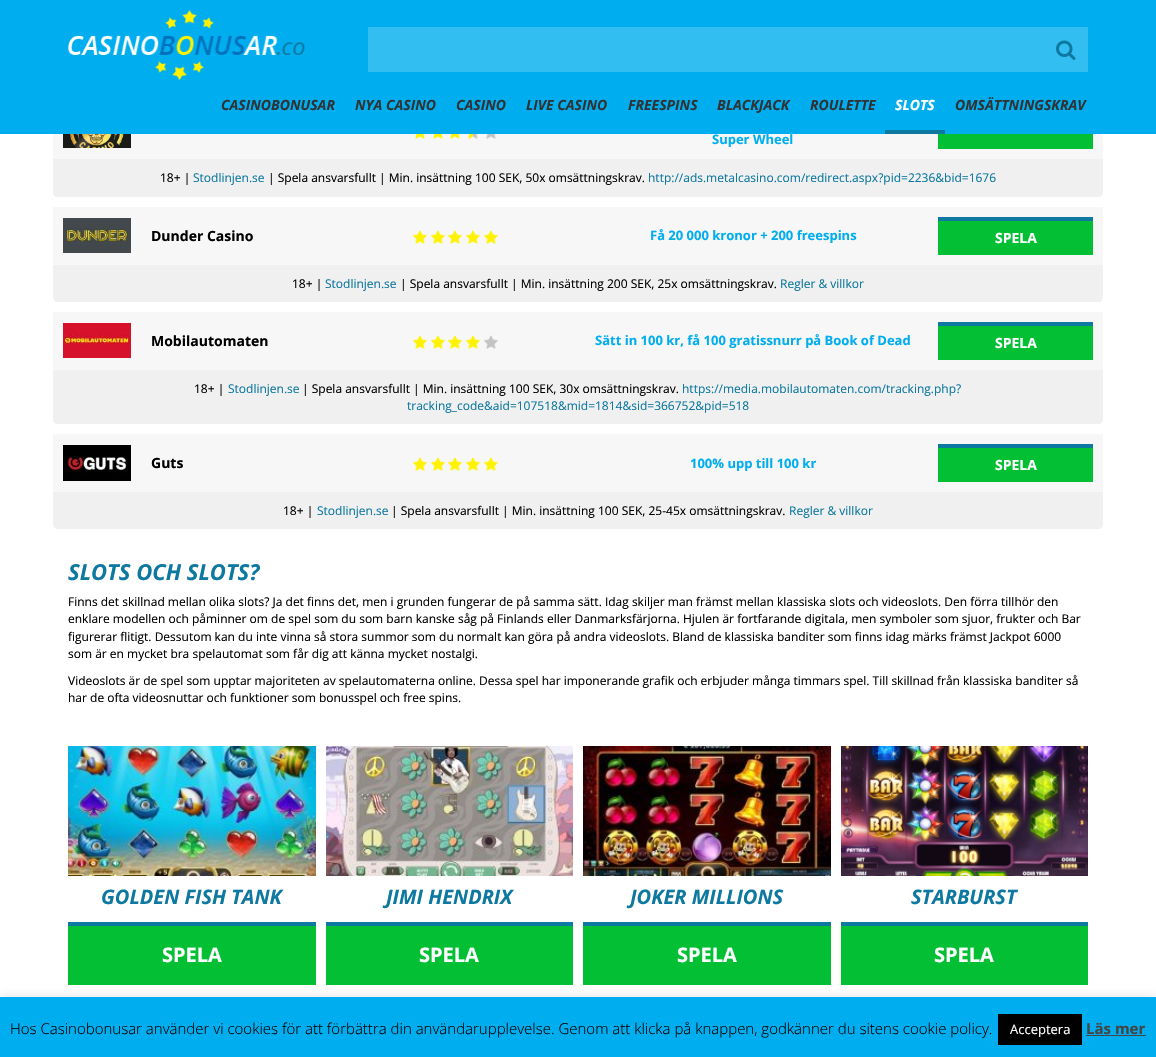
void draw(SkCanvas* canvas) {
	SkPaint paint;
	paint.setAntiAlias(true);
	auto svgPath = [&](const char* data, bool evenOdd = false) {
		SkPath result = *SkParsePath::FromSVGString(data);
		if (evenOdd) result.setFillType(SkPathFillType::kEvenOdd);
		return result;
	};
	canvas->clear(0xffffffff);
	paint.setColor(0xff00aeef);
	canvas->drawRect(SkRect::MakeXYWH(0, 0, 1156, 134), paint);
	canvas->drawImageRect(SkImages::DeferredFromEncodedData(SkData::MakeFromFileName("img1.png")), SkRect::MakeXYWH(68, 10, 237, 70), SkSamplingOptions());
	paint.setColor(0xff33bef2);
	canvas->drawRect(SkRect::MakeXYWH(368, 27, 720, 45), paint);
	canvas->drawImageRect(SkImages::DeferredFromEncodedData(SkData::MakeFromFileName("img2.png")), SkRect::MakeXYWH(1056, 40, 20, 20), SkSamplingOptions());
	SkFont f1(fontMgr->matchFamilyStyle("Open Sans", SkFontStyle::BoldItalic()), 14);
	f1.setSubpixel(true);
	paint.setColor(0xff303335);
	canvas->drawString("CASINOBONUSAR", 221, 110, f1, paint);
	canvas->drawString("NYA CASINO", 355, 110, f1, paint);
	canvas->drawString("CASINO", 456, 110, f1, paint);
	canvas->drawString("LIVE CASINO", 526, 110, f1, paint);
	canvas->drawString("FREESPINS", 628, 110, f1, paint);
	canvas->drawString("BLACKJACK", 717, 110, f1, paint);
	canvas->drawString("ROULETTE", 810, 110, f1, paint);
	paint.setColor(0xff0d78a0);
	canvas->drawRect(SkRect::MakeXYWH(885, 130, 60, 4), paint);
	paint.setColor(0xffffffff);
	canvas->drawString("SLOTS", 895, 110, f1, paint);
	paint.setColor(0xff303335);
	canvas->drawString("OMSÄTTNINGSKRAV", 955, 110, f1, paint);
	paint.setColor(0xfff7f7f7);
	canvas->drawRect(SkRect::MakeXYWH(53, 134, 1050, 25), paint);
	canvas->drawImageRect(SkImages::DeferredFromEncodedData(SkData::MakeFromFileName("img3.png")), SkRect::MakeXYWH(63, 134, 68, 14), SkSamplingOptions());
	canvas->drawImageRect(SkImages::DeferredFromEncodedData(SkData::MakeFromFileName("img4.png")), SkRect::MakeXYWH(415, 134, 10, 5), SkSamplingOptions());
	canvas->drawImageRect(SkImages::DeferredFromEncodedData(SkData::MakeFromFileName("img4.png")), SkRect::MakeXYWH(433, 134, 10, 5), SkSamplingOptions());
	canvas->drawImageRect(SkImages::DeferredFromEncodedData(SkData::MakeFromFileName("img4.png")), SkRect::MakeXYWH(450, 134, 10, 5), SkSamplingOptions());
	canvas->drawImageRect(SkImages::DeferredFromEncodedData(SkData::MakeFromFileName("img5.png")), SkRect::MakeXYWH(467, 134, 11, 5), SkSamplingOptions());
	canvas->drawImageRect(SkImages::DeferredFromEncodedData(SkData::MakeFromFileName("img6.png")), SkRect::MakeXYWH(486, 134, 10, 5), SkSamplingOptions());
	SkFont f2(fontMgr->matchFamilyStyle("Open Sans", SkFontStyle::Bold()), 13);
	f2.setSubpixel(true);
	paint.setColor(0xff00aeef);
	canvas->drawString("Super Wheel", 712, 144, f2, paint);
	paint.setColor(0xff03bf34);
	canvas->drawRect(SkRect::MakeXYWH(938, 134, 155, 15), paint);
	paint.setColor(0xfff0f0f0);
	canvas->drawPath(svgPath("M53 159H1103V192C1103 195 1101 197 1098 197H58C55 197 53 195 53 192Z"), paint);
	SkFont f3(fontMgr->matchFamilyStyle("Open Sans", SkFontStyle::Normal()), 12);
	f3.setSubpixel(true);
	paint.setColor(0xff000000);
	canvas->drawString("18+ |", 160, 182, f3, paint);
	paint.setColor(0xff0d78a0);
	canvas->drawString("Stodlinjen.se", 193, 182, f3, paint);
	paint.setColor(0xff000000);
	canvas->drawString("| Spela ansvarsfullt | Min. insättning 100 SEK, 50x omsättningskrav.", 268, 182, f3, paint);
	paint.setColor(0xff0d78a0);
	canvas->drawString("http://ads.metalcasino.com/redirect.aspx?pid=2236&bid=1676", 648, 182, f3, paint);
	paint.setColor(0xfff7f7f7);
	canvas->drawRect(SkRect::MakeXYWH(53, 207, 1050, 58), paint);
	canvas->drawImageRect(SkImages::DeferredFromEncodedData(SkData::MakeFromFileName("img7.png")), SkRect::MakeXYWH(63, 218, 68, 35), SkSamplingOptions());
	SkFont f4(fontMgr->matchFamilyStyle("Open Sans", SkFontStyle::Bold()), 14);
	f4.setSubpixel(true);
	paint.setColor(0xff000000);
	canvas->drawString("Dunder Casino", 151, 241, f4, paint);
	canvas->drawImageRect(SkImages::DeferredFromEncodedData(SkData::MakeFromFileName("img8.png")), SkRect::MakeXYWH(413, 230, 14, 14), SkSamplingOptions());
	canvas->drawImageRect(SkImages::DeferredFromEncodedData(SkData::MakeFromFileName("img8.png")), SkRect::MakeXYWH(431, 230, 14, 14), SkSamplingOptions());
	canvas->drawImageRect(SkImages::DeferredFromEncodedData(SkData::MakeFromFileName("img8.png")), SkRect::MakeXYWH(448, 230, 14, 14), SkSamplingOptions());
	canvas->drawImageRect(SkImages::DeferredFromEncodedData(SkData::MakeFromFileName("img8.png")), SkRect::MakeXYWH(466, 230, 14, 14), SkSamplingOptions());
	canvas->drawImageRect(SkImages::DeferredFromEncodedData(SkData::MakeFromFileName("img9.png")), SkRect::MakeXYWH(484, 230, 14, 14), SkSamplingOptions());
	paint.setColor(0xff00aeef);
	canvas->drawString("Få 20 000 kronor + 200 freespins", 650, 240, f2, paint);
	paint.setColor(0xff03bf34);
	canvas->drawRect(SkRect::MakeXYWH(938, 221, 155, 34), paint);
	paint.setColor(0xff0d78a0);
	canvas->drawRect(SkRect::MakeXYWH(938, 217, 155, 4), paint);
	paint.setColor(0xffffffff);
	canvas->drawString("SPELA", 995, 243, f4, paint);
	paint.setColor(0xfff0f0f0);
	canvas->drawPath(svgPath("M53 265H1103V297C1103 300 1101 302 1098 302H58C55 302 53 300 53 297Z"), paint);
	paint.setColor(0xff000000);
	canvas->drawString("18+ |", 292, 288, f3, paint);
	paint.setColor(0xff0d78a0);
	canvas->drawString("Stodlinjen.se", 325, 288, f3, paint);
	paint.setColor(0xff000000);
	canvas->drawString("| Spela ansvarsfullt | Min. insättning 200 SEK, 25x omsättningskrav.", 400, 288, f3, paint);
	paint.setColor(0xff0d78a0);
	canvas->drawString("Regler & villkor", 780, 288, f3, paint);
	paint.setColor(0xfff7f7f7);
	canvas->drawRect(SkRect::MakeXYWH(53, 312, 1050, 58), paint);
	canvas->drawImageRect(SkImages::DeferredFromEncodedData(SkData::MakeFromFileName("img10.png")), SkRect::MakeXYWH(63, 323, 68, 35), SkSamplingOptions());
	paint.setColor(0xff000000);
	canvas->drawString("Mobilautomaten", 151, 346, f4, paint);
	canvas->drawImageRect(SkImages::DeferredFromEncodedData(SkData::MakeFromFileName("img8.png")), SkRect::MakeXYWH(413, 335, 14, 14), SkSamplingOptions());
	canvas->drawImageRect(SkImages::DeferredFromEncodedData(SkData::MakeFromFileName("img8.png")), SkRect::MakeXYWH(431, 335, 14, 14), SkSamplingOptions());
	canvas->drawImageRect(SkImages::DeferredFromEncodedData(SkData::MakeFromFileName("img8.png")), SkRect::MakeXYWH(448, 335, 14, 14), SkSamplingOptions());
	canvas->drawImageRect(SkImages::DeferredFromEncodedData(SkData::MakeFromFileName("img8.png")), SkRect::MakeXYWH(466, 335, 14, 14), SkSamplingOptions());
	canvas->drawImageRect(SkImages::DeferredFromEncodedData(SkData::MakeFromFileName("img11.png")), SkRect::MakeXYWH(484, 335, 14, 14), SkSamplingOptions());
	paint.setColor(0xff00aeef);
	canvas->drawString("Sätt in 100 kr, få 100 gratissnurr på Book of Dead", 595, 345, f2, paint);
	paint.setColor(0xff03bf34);
	canvas->drawRect(SkRect::MakeXYWH(938, 326, 155, 34), paint);
	paint.setColor(0xff0d78a0);
	canvas->drawRect(SkRect::MakeXYWH(938, 322, 155, 4), paint);
	paint.setColor(0xffffffff);
	canvas->drawString("SPELA", 995, 348, f4, paint);
	paint.setColor(0xfff0f0f0);
	canvas->drawPath(svgPath("M53 370H1103V419C1103 422 1101 424 1098 424H58C55 424 53 422 53 419Z"), paint);
	paint.setColor(0xff000000);
	canvas->drawString("18+ |", 194, 393, f3, paint);
	paint.setColor(0xff0d78a0);
	canvas->drawString("Stodlinjen.se", 228, 393, f3, paint);
	paint.setColor(0xff000000);
	canvas->drawString("| Spela ansvarsfullt | Min. insättning 100 SEK, 30x omsättningskrav.", 302, 393, f3, paint);
	paint.setColor(0xff0d78a0);
	canvas->drawString("https://media.mobilautomaten.com/tracking.php?", 682, 393, f3, paint);
	canvas->drawString("tracking_code&aid=107518&mid=1814&sid=366752&pid=518", 407, 410, f3, paint);
	paint.setColor(0xfff7f7f7);
	canvas->drawRect(SkRect::MakeXYWH(53, 434, 1050, 58), paint);
	canvas->drawImageRect(SkImages::DeferredFromEncodedData(SkData::MakeFromFileName("img12.png")), SkRect::MakeXYWH(63, 445, 68, 36), SkSamplingOptions());
	paint.setColor(0xff000000);
	canvas->drawString("Guts", 151, 468, f4, paint);
	canvas->drawImageRect(SkImages::DeferredFromEncodedData(SkData::MakeFromFileName("img8.png")), SkRect::MakeXYWH(413, 457, 14, 14), SkSamplingOptions());
	canvas->drawImageRect(SkImages::DeferredFromEncodedData(SkData::MakeFromFileName("img8.png")), SkRect::MakeXYWH(431, 457, 14, 14), SkSamplingOptions());
	canvas->drawImageRect(SkImages::DeferredFromEncodedData(SkData::MakeFromFileName("img8.png")), SkRect::MakeXYWH(448, 457, 14, 14), SkSamplingOptions());
	canvas->drawImageRect(SkImages::DeferredFromEncodedData(SkData::MakeFromFileName("img8.png")), SkRect::MakeXYWH(466, 457, 14, 14), SkSamplingOptions());
	canvas->drawImageRect(SkImages::DeferredFromEncodedData(SkData::MakeFromFileName("img9.png")), SkRect::MakeXYWH(484, 457, 14, 14), SkSamplingOptions());
	paint.setColor(0xff00aeef);
	canvas->drawString("100% upp till 100 kr", 690, 468, f2, paint);
	paint.setColor(0xff03bf34);
	canvas->drawRect(SkRect::MakeXYWH(938, 448, 155, 34), paint);
	paint.setColor(0xff0d78a0);
	canvas->drawRect(SkRect::MakeXYWH(938, 444, 155, 4), paint);
	paint.setColor(0xffffffff);
	canvas->drawString("SPELA", 995, 470, f4, paint);
	paint.setColor(0xfff0f0f0);
	canvas->drawPath(svgPath("M53 492H1103V524C1103 527 1101 529 1098 529H58C55 529 53 527 53 524Z"), paint);
	paint.setColor(0xff000000);
	canvas->drawString("18+ |", 283, 515, f3, paint);
	paint.setColor(0xff0d78a0);
	canvas->drawString("Stodlinjen.se", 317, 515, f3, paint);
	paint.setColor(0xff000000);
	canvas->drawString("| Spela ansvarsfullt | Min. insättning 100 SEK, 25-45x omsättningskrav.", 391, 515, f3, paint);
	paint.setColor(0xff0d78a0);
	canvas->drawString("Regler & villkor", 789, 515, f3, paint);
	SkFont f5(fontMgr->matchFamilyStyle("Open Sans", SkFontStyle::BoldItalic()), 22);
	f5.setSubpixel(true);
	canvas->drawString("SLOTS OCH SLOTS?", 68, 580, f5, paint);
	paint.setColor(0xff000000);
	canvas->drawString("Finns det skillnad mellan olika slots? Ja det finns det, men i grunden fungerar de på samma sätt. Idag skiljer man främst mellan klassiska slots och videoslots. Den förra tillhör den", 68, 606, f3, paint);
	canvas->drawString("enklare modellen och påminner om de spel som du som barn kanske såg på Finlands eller Danmarksfärjorna. Hjulen är fortfarande digitala, men symboler som sjuor, frukter och Bar", 68, 623, f3, paint);
	canvas->drawString("figurerar flitigt. Dessutom kan du inte vinna så stora summor som du normalt kan göra på andra videoslots. Bland de klassiska banditer som finns idag märks främst Jackpot 6000", 68, 641, f3, paint);
	canvas->drawString("som är en mycket bra spelautomat som får dig att känna mycket nostalgi.", 68, 658, f3, paint);
	canvas->drawString("Videoslots är de spel som upptar majoriteten av spelautomaterna online. Dessa spel har imponerande grafik och erbjuder många timmars spel. Till skillnad från klassiska banditer så", 68, 685, f3, paint);
	canvas->drawString("har de ofta videosnuttar och funktioner som bonusspel och free spins.", 68, 702, f3, paint);
	canvas->drawImageRect(SkImages::DeferredFromEncodedData(SkData::MakeFromFileName("img13.png")), SkRect::MakeXYWH(68, 746, 248, 130), SkSamplingOptions());
	SkFont f6(fontMgr->matchFamilyStyle("Open Sans", SkFontStyle::BoldItalic()), 20);
	f6.setSubpixel(true);
	paint.setColor(0xff0d78a0);
	canvas->drawString("GOLDEN FISH TANK", 101, 904, f6, paint);
	paint.setColor(0xff03bf34);
	canvas->drawRect(SkRect::MakeXYWH(68, 926, 248, 59), paint);
	paint.setColor(0xff0d78a0);
	canvas->drawRect(SkRect::MakeXYWH(68, 922, 248, 4), paint);
	SkFont f7(fontMgr->matchFamilyStyle("Open Sans", SkFontStyle::Bold()), 20);
	f7.setSubpixel(true);
	paint.setColor(0xffffffff);
	canvas->drawString("SPELA", 162, 962, f7, paint);
	canvas->drawImageRect(SkImages::DeferredFromEncodedData(SkData::MakeFromFileName("img14.png")), SkRect::MakeXYWH(326, 746, 247, 130), SkSamplingOptions());
	paint.setColor(0xff0d78a0);
	canvas->drawString("JIMI HENDRIX", 386, 904, f6, paint);
	paint.setColor(0xff03bf34);
	canvas->drawRect(SkRect::MakeXYWH(326, 926, 247, 59), paint);
	paint.setColor(0xff0d78a0);
	canvas->drawRect(SkRect::MakeXYWH(326, 922, 247, 4), paint);
	paint.setColor(0xffffffff);
	canvas->drawString("SPELA", 419, 962, f7, paint);
	canvas->drawImageRect(SkImages::DeferredFromEncodedData(SkData::MakeFromFileName("img15.png")), SkRect::MakeXYWH(583, 746, 248, 130), SkSamplingOptions());
	paint.setColor(0xff0d78a0);
	canvas->drawString("JOKER MILLIONS", 630, 904, f6, paint);
	paint.setColor(0xff03bf34);
	canvas->drawRect(SkRect::MakeXYWH(583, 926, 248, 59), paint);
	paint.setColor(0xff0d78a0);
	canvas->drawRect(SkRect::MakeXYWH(583, 922, 248, 4), paint);
	paint.setColor(0xffffffff);
	canvas->drawString("SPELA", 677, 962, f7, paint);
	canvas->drawImageRect(SkImages::DeferredFromEncodedData(SkData::MakeFromFileName("img16.png")), SkRect::MakeXYWH(841, 746, 247, 130), SkSamplingOptions());
	paint.setColor(0xff0d78a0);
	canvas->drawString("STARBURST", 911, 904, f6, paint);
	paint.setColor(0xff03bf34);
	canvas->drawRect(SkRect::MakeXYWH(841, 926, 247, 59), paint);
	paint.setColor(0xff0d78a0);
	canvas->drawRect(SkRect::MakeXYWH(841, 922, 247, 4), paint);
	paint.setColor(0xffffffff);
	canvas->drawString("SPELA", 934, 962, f7, paint);
	paint.setColor(0x4dacabab);
	paint.setMaskFilter(SkMaskFilter::MakeBlur(kNormal_SkBlurStyle, 5));
	canvas->drawRect(SkRect::MakeXYWH(0, 996, 1156, 60), paint);
	paint.setMaskFilter(nullptr);
	paint.setColor(0xff00aeef);
	canvas->drawRect(SkRect::MakeXYWH(0, 997, 1156, 60), paint);
	SkFont f8(fontMgr->matchFamilyStyle("Open Sans", SkFontStyle(300, SkFontStyle::kNormal_Width, SkFontStyle::kUpright_Slant)), 15);
	f8.setSubpixel(true);
	paint.setColor(0xff000000);
	canvas->drawString("Hos Casinobonusar använder vi cookies för att förbättra din användarupplevelse. Genom att klicka på knappen, godkänner du sitens cookie policy.", 10, 1034, f8, paint);
	canvas->drawRect(SkRect::MakeXYWH(998, 1014, 84, 31), paint);
	SkFont f9(fontMgr->matchFamilyStyle("Open Sans", SkFontStyle::Normal()), 13);
	f9.setSubpixel(true);
	paint.setColor(0xffffffff);
	canvas->drawString("Acceptera", 1010, 1034, f9, paint);
	SkFont f10(fontMgr->matchFamilyStyle("Open Sans", SkFontStyle::Bold()), 15);
	f10.setSubpixel(true);
	paint.setColor(0xff444444);
	canvas->drawString("Läs mer", 1086, 1034, f10, paint);
	canvas->drawRect(SkRect::MakeXYWH(1086, 1035, 60, 1), paint);
}
